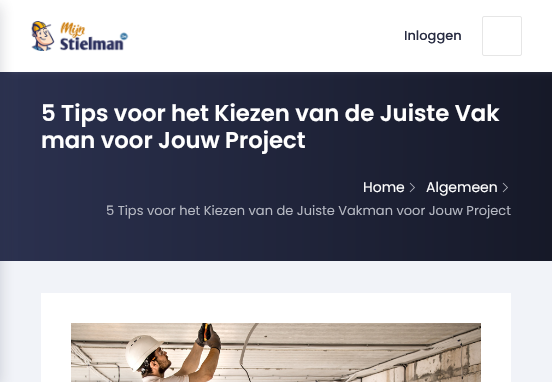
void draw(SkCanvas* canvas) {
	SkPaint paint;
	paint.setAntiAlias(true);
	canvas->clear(0xfff1f3f8);
	{
		const SkColor colors[] = {0xff161928, 0xff2b314f};
		const float stops[] = {0, 1};
		const SkPoint ends[] = {{552, 166}, {0, 165}};
		paint.setShader(SkGradientShader::MakeLinear(ends, colors, stops, 2, SkTileMode::kClamp));
		paint.setAlpha(255);
	}
	canvas->drawRect(SkRect::MakeXYWH(0, 72, 552, 189), paint);
	paint.setShader(nullptr);
	paint.setColor(0x339299b8);
	paint.setMaskFilter(SkMaskFilter::MakeBlur(kNormal_SkBlurStyle, 2.5));
	canvas->drawRect(SkRect::MakeXYWH(10, 0, 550, 72), paint);
	paint.setMaskFilter(nullptr);
	paint.setColor(0xffffffff);
	canvas->drawRect(SkRect::MakeXYWH(0, 0, 552, 72), paint);
	paint.setColor(0x33272b41);
	paint.setMaskFilter(SkMaskFilter::MakeBlur(kNormal_SkBlurStyle, 7.5));
	canvas->drawRect(SkRect::MakeXYWH(-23, 5, 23, 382), paint);
	paint.setMaskFilter(nullptr);
	canvas->drawImageRect(SkImages::DeferredFromEncodedData(SkData::MakeFromFileName("img1.png")), SkRect::MakeXYWH(31, 21, 98, 30), SkSamplingOptions());
	SkFont f1(fontMgr->matchFamilyStyle("Poppins", SkFontStyle(500, SkFontStyle::kNormal_Width, SkFontStyle::kUpright_Slant)), 13);
	f1.setSubpixel(true);
	paint.setColor(0xff272b41);
	canvas->drawString("Inloggen", 404, 40, f1, paint);
	paint.setStroke(true);
	paint.setStrokeWidth(1);
	paint.setColor(0xffe6e6e6);
	canvas->drawRoundRect(SkRect::MakeXYWH(482.5, 16.5, 39, 39), 1.5, 1.5, paint);
	SkFont f2(fontMgr->matchFamilyStyle("Poppins", SkFontStyle(600, SkFontStyle::kNormal_Width, SkFontStyle::kUpright_Slant)), 22.75);
	f2.setSubpixel(true);
	paint.setStroke(false);
	paint.setColor(0xffffffff);
	canvas->drawString("5 Tips voor het Kiezen van de Juiste Vak", 41, 121, f2, paint);
	canvas->drawString("man voor Jouw Project", 41, 148, f2, paint);
	SkFont f3(fontMgr->matchFamilyStyle("Poppins", SkFontStyle::Normal()), 14);
	f3.setSubpixel(true);
	canvas->drawString("Home", 363, 192, f3, paint);
	canvas->drawImageRect(SkImages::DeferredFromEncodedData(SkData::MakeFromFileName("img2.png")), SkRect::MakeXYWH(409, 182, 6, 11), SkSamplingOptions());
	canvas->drawString("Algemeen", 426, 192, f3, paint);
	canvas->drawImageRect(SkImages::DeferredFromEncodedData(SkData::MakeFromFileName("img3.png")), SkRect::MakeXYWH(502, 182, 6, 11), SkSamplingOptions());
	SkFont f4(fontMgr->matchFamilyStyle("Poppins", SkFontStyle::Normal()), 13);
	f4.setSubpixel(true);
	paint.setColor(0xffb5b8c2);
	canvas->drawString("5 Tips voor het Kiezen van de Juiste Vakman voor Jouw Project", 106, 215, f4, paint);
	paint.setColor(0xffffffff);
	canvas->drawRect(SkRect::MakeXYWH(41, 293, 470, 89), paint);
	canvas->drawImageRect(SkImages::DeferredFromEncodedData(SkData::MakeFromFileName("img4.png")), SkRect::MakeXYWH(71, 323, 410, 59), SkSamplingOptions());
}
